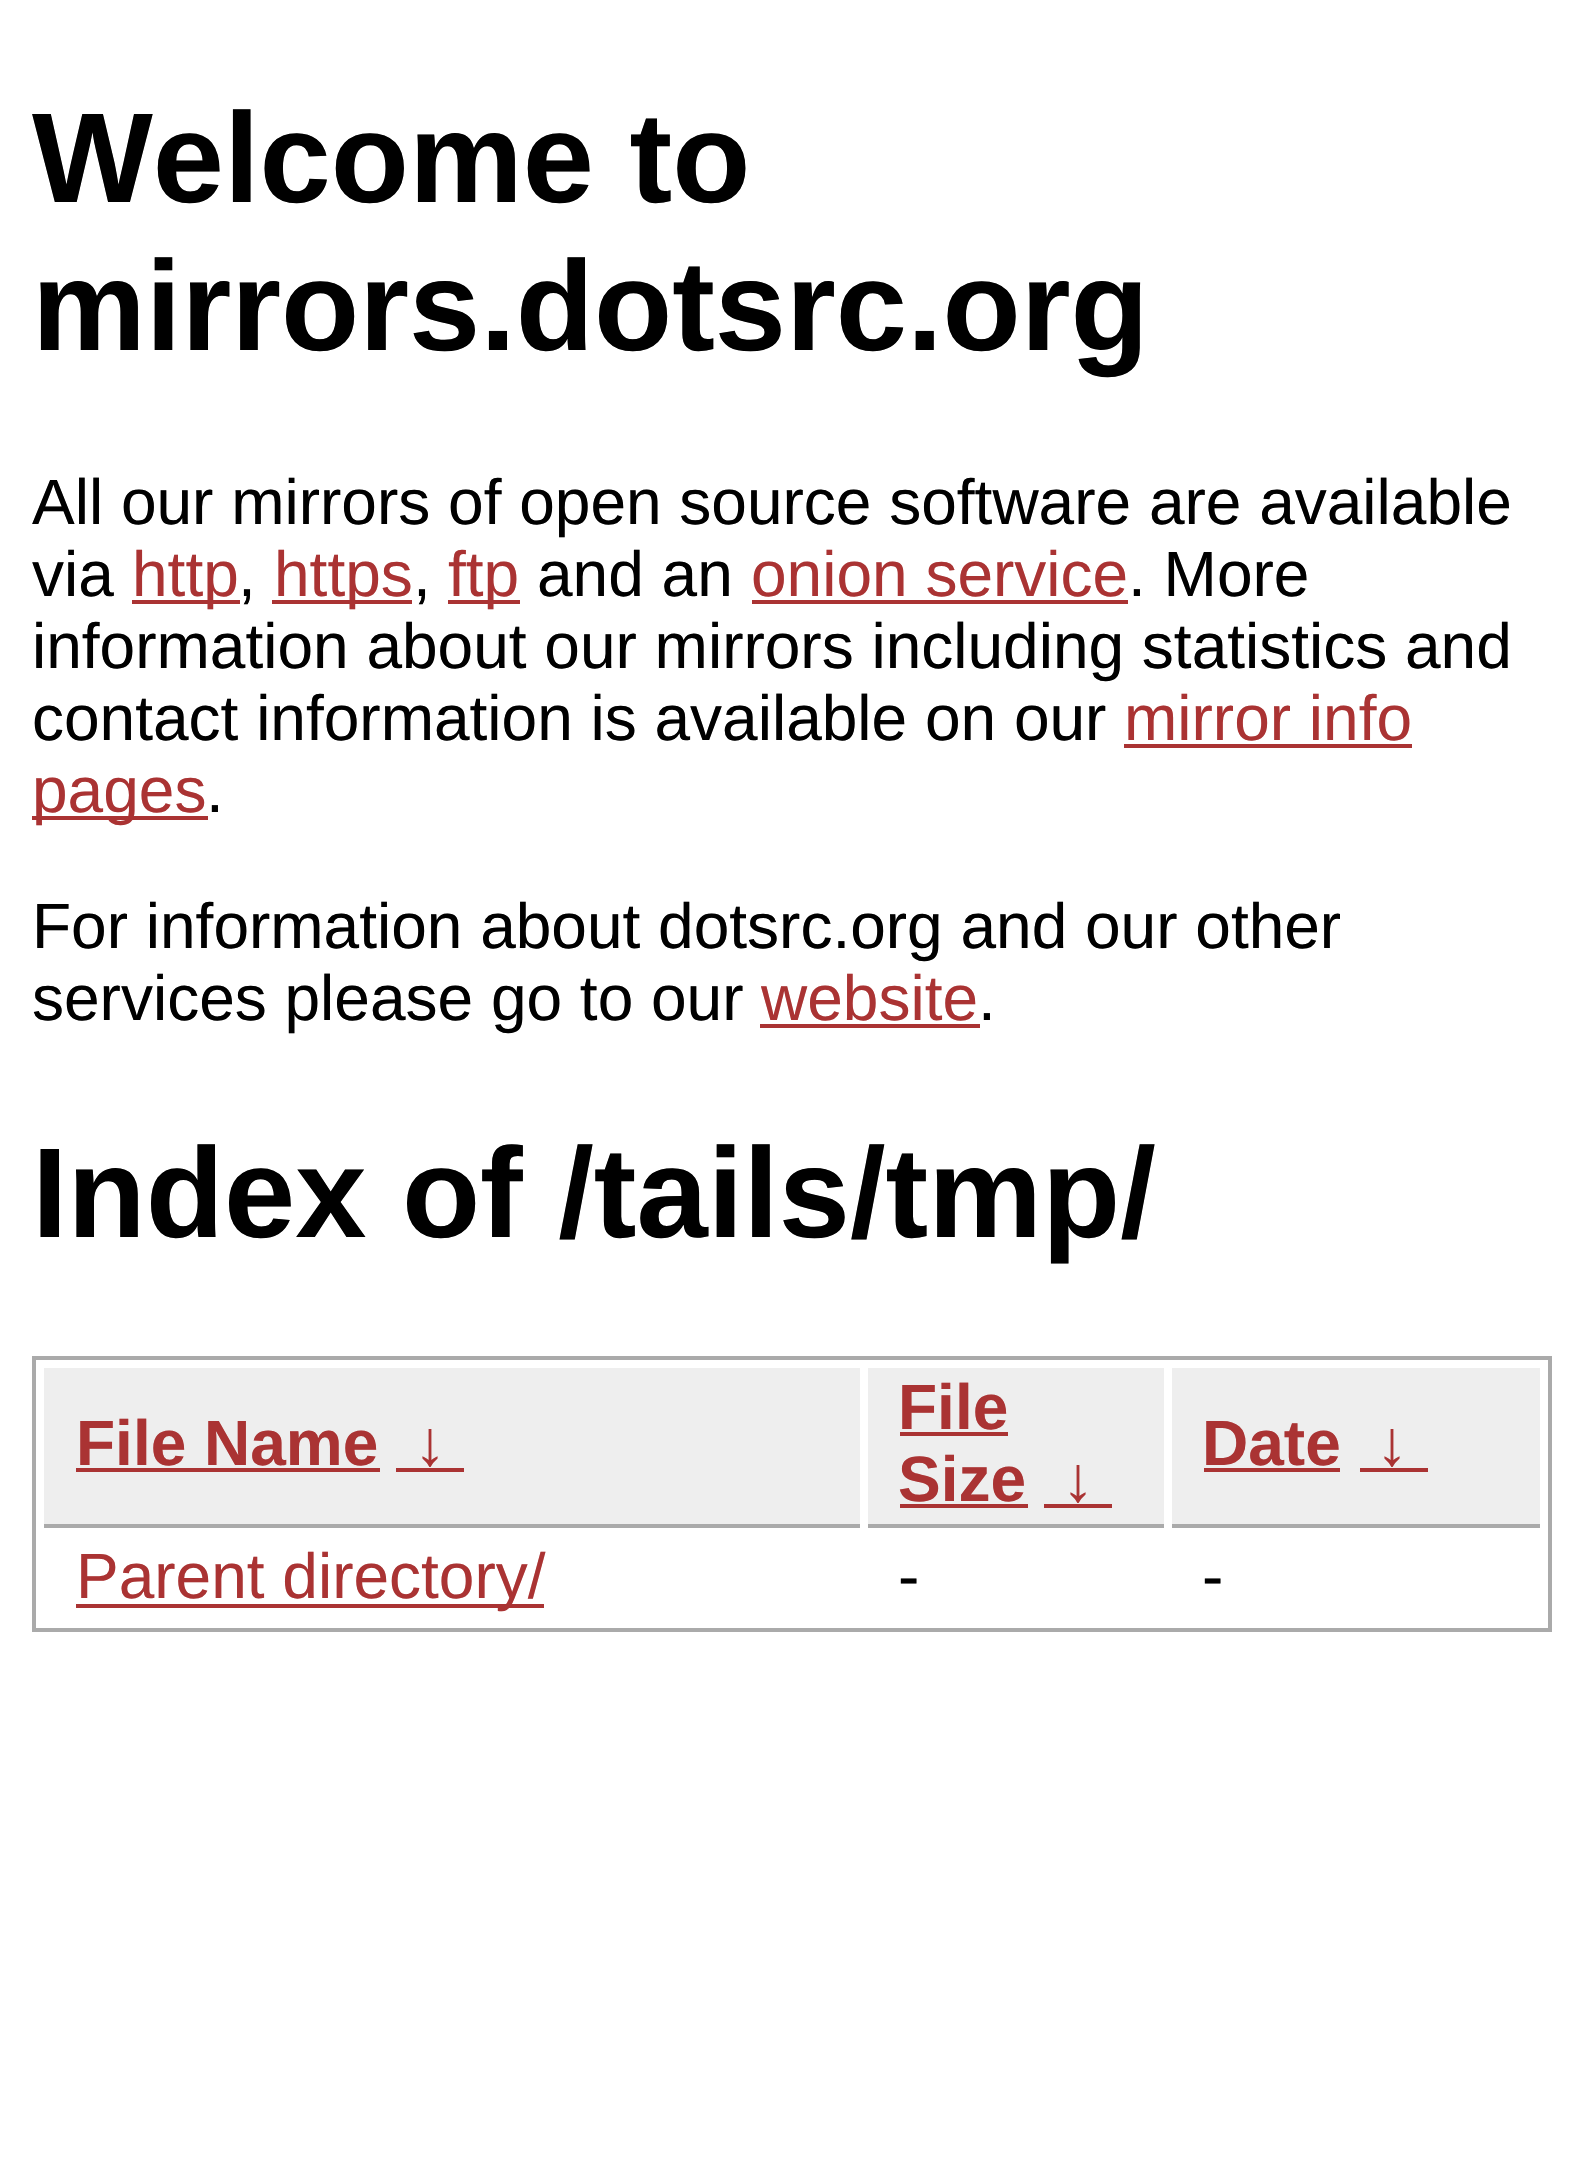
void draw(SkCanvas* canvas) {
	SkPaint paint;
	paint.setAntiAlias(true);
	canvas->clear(0xffffffff);
	SkFont f1(fontMgr->matchFamilyStyle("Liberation Sans", SkFontStyle::Bold()), 128);
	f1.setSubpixel(true);
	paint.setColor(0xff000000);
	canvas->drawString("Welcome to", 32, 202, f1, paint);
	canvas->drawString("mirrors.dotsrc.org", 32, 350, f1, paint);
	SkFont f2(fontMgr->matchFamilyStyle("Liberation Sans", SkFontStyle::Normal()), 64);
	f2.setSubpixel(true);
	canvas->drawString("All our mirrors of open source software are available", 32, 524, f2, paint);
	canvas->drawString("via", 32, 596, f2, paint);
	paint.setColor(0xffaa3333);
	canvas->drawRect(SkRect::MakeXYWH(132, 600, 108, 4), paint);
	canvas->drawString("http", 132, 596, f2, paint);
	paint.setColor(0xff000000);
	canvas->drawString(",", 238, 596, f2, paint);
	paint.setColor(0xffaa3333);
	canvas->drawRect(SkRect::MakeXYWH(272, 600, 140, 4), paint);
	canvas->drawString("https", 274, 596, f2, paint);
	paint.setColor(0xff000000);
	canvas->drawString(",", 413, 596, f2, paint);
	paint.setColor(0xffaa3333);
	canvas->drawRect(SkRect::MakeXYWH(448, 600, 72, 4), paint);
	canvas->drawString("ftp", 448, 596, f2, paint);
	paint.setColor(0xff000000);
	canvas->drawString("and an", 537, 596, f2, paint);
	paint.setColor(0xffaa3333);
	canvas->drawString("onion service", 751, 596, f2, paint);
	canvas->drawRect(SkRect::MakeXYWH(752, 600, 376, 4), paint);
	paint.setColor(0xff000000);
	canvas->drawString(". More", 1128, 596, f2, paint);
	canvas->drawString("information about our mirrors including statistics and", 32, 668, f2, paint);
	canvas->drawString("contact information is available on our", 32, 740, f2, paint);
	paint.setColor(0xffaa3333);
	canvas->drawString("mirror info", 1124, 740, f2, paint);
	canvas->drawRect(SkRect::MakeXYWH(1124, 744, 288, 4), paint);
	canvas->drawRect(SkRect::MakeXYWH(32, 816, 176, 4), paint);
	canvas->drawString("pages", 32, 812, f2, paint);
	paint.setColor(0xff000000);
	canvas->drawString(".", 206, 812, f2, paint);
	canvas->drawString("For information about dotsrc.org and our other", 32, 948, f2, paint);
	canvas->drawString("services please go to our", 32, 1020, f2, paint);
	paint.setColor(0xffaa3333);
	canvas->drawString("website", 761, 1020, f2, paint);
	canvas->drawRect(SkRect::MakeXYWH(760, 1024, 220, 4), paint);
	paint.setColor(0xff000000);
	canvas->drawString(".", 978, 1020, f2, paint);
	canvas->drawString("Index of /tails/tmp/", 32, 1237, f1, paint);
	paint.setStroke(true);
	paint.setStrokeWidth(4);
	paint.setColor(0xffaaaaaa);
	canvas->drawRect(SkRect::MakeXYWH(34, 1358, 1516, 272), paint);
	paint.setStroke(false);
	paint.setColor(0xffeeeeee);
	canvas->drawRect(SkRect::MakeXYWH(44, 1368, 816, 156), paint);
	paint.setColor(0xffaaaaaa);
	canvas->drawRect(SkRect::MakeXYWH(44, 1524, 816, 4), paint);
	SkFont f3(fontMgr->matchFamilyStyle("Liberation Sans", SkFontStyle::Bold()), 64);
	f3.setSubpixel(true);
	paint.setColor(0xffaa3333);
	canvas->drawString("File Name", 76, 1465, f3, paint);
	canvas->drawRect(SkRect::MakeXYWH(76, 1468, 304, 4), paint);
	canvas->drawString("↓", 414, 1465, f3, paint);
	canvas->drawRect(SkRect::MakeXYWH(396, 1468, 68, 4), paint);
	paint.setColor(0xffeeeeee);
	canvas->drawRect(SkRect::MakeXYWH(868, 1368, 296, 156), paint);
	paint.setColor(0xffaaaaaa);
	canvas->drawRect(SkRect::MakeXYWH(868, 1524, 296, 4), paint);
	paint.setColor(0xffaa3333);
	canvas->drawString("File", 898, 1429, f3, paint);
	canvas->drawRect(SkRect::MakeXYWH(900, 1432, 108, 4), paint);
	canvas->drawString("Size", 898, 1501, f3, paint);
	canvas->drawRect(SkRect::MakeXYWH(900, 1504, 128, 4), paint);
	canvas->drawString("↓", 1062, 1501, f3, paint);
	canvas->drawRect(SkRect::MakeXYWH(1044, 1504, 68, 4), paint);
	paint.setColor(0xffeeeeee);
	canvas->drawRect(SkRect::MakeXYWH(1172, 1368, 368, 156), paint);
	paint.setColor(0xffaaaaaa);
	canvas->drawRect(SkRect::MakeXYWH(1172, 1524, 368, 4), paint);
	paint.setColor(0xffaa3333);
	canvas->drawString("Date", 1202, 1465, f3, paint);
	canvas->drawRect(SkRect::MakeXYWH(1204, 1468, 136, 4), paint);
	canvas->drawString("↓", 1376, 1465, f3, paint);
	canvas->drawRect(SkRect::MakeXYWH(1360, 1468, 68, 4), paint);
	canvas->drawRect(SkRect::MakeXYWH(76, 1604, 468, 4), paint);
	canvas->drawString("Parent directory/", 76, 1598, f2, paint);
	paint.setColor(0xff000000);
	canvas->drawString("-", 898, 1598, f2, paint);
	canvas->drawString("-", 1202, 1598, f2, paint);
}
